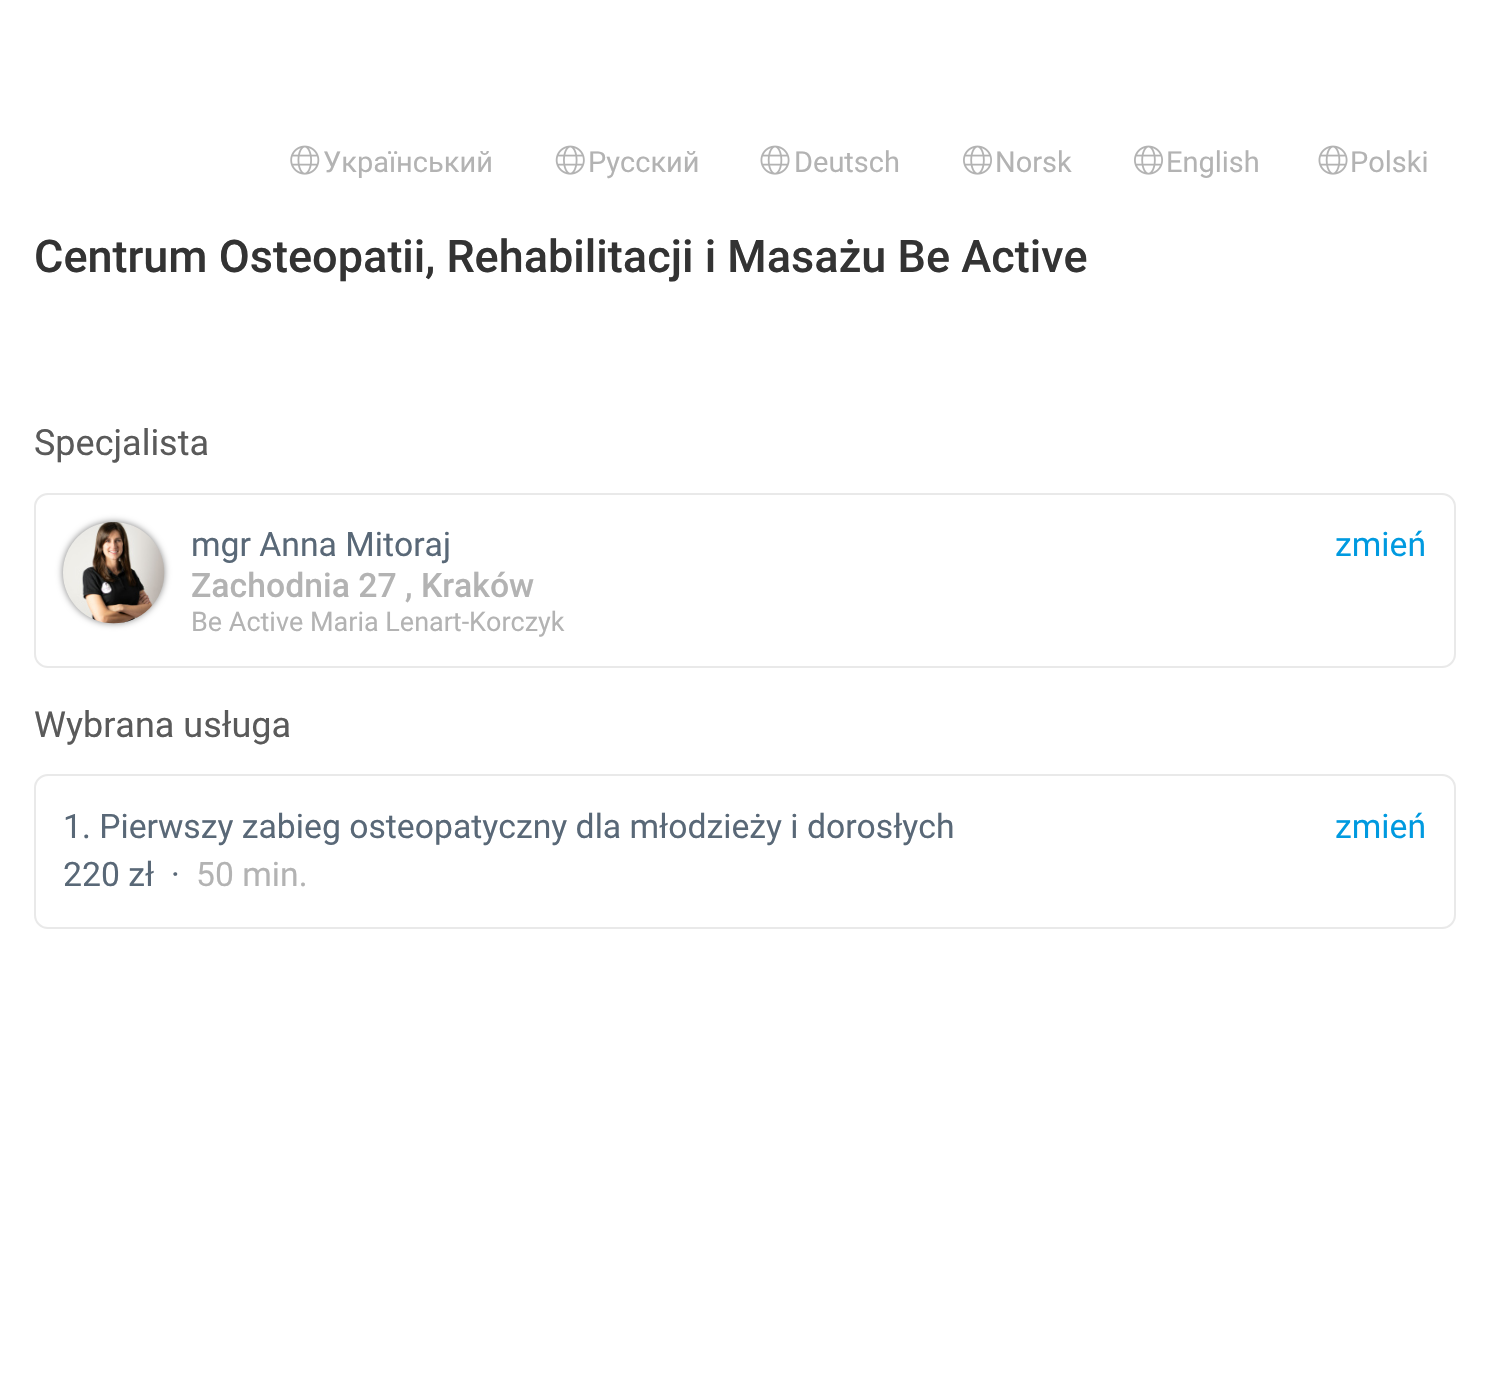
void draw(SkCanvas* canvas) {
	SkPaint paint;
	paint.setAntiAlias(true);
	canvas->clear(0xffffffff);
	canvas->drawImageRect(SkImages::DeferredFromEncodedData(SkData::MakeFromFileName("img1.png")), SkRect::MakeXYWH(290, 145, 30, 30), SkSamplingOptions());
	SkFont f1(fontMgr->matchFamilyStyle("Roboto", SkFontStyle::Normal()), 29);
	f1.setSubpixel(true);
	paint.setColor(0xffb3b3b3);
	canvas->drawString("Український", 323, 172, f1, paint);
	canvas->drawImageRect(SkImages::DeferredFromEncodedData(SkData::MakeFromFileName("img2.png")), SkRect::MakeXYWH(555, 145, 30, 30), SkSamplingOptions());
	canvas->drawString("Русский", 588, 172, f1, paint);
	canvas->drawImageRect(SkImages::DeferredFromEncodedData(SkData::MakeFromFileName("img3.png")), SkRect::MakeXYWH(760, 145, 30, 30), SkSamplingOptions());
	canvas->drawString("Deutsch", 794, 172, f1, paint);
	canvas->drawImageRect(SkImages::DeferredFromEncodedData(SkData::MakeFromFileName("img4.png")), SkRect::MakeXYWH(963, 145, 29, 30), SkSamplingOptions());
	canvas->drawString("Norsk", 995, 172, f1, paint);
	canvas->drawImageRect(SkImages::DeferredFromEncodedData(SkData::MakeFromFileName("img4.png")), SkRect::MakeXYWH(1134, 145, 29, 30), SkSamplingOptions());
	canvas->drawString("English", 1166, 172, f1, paint);
	canvas->drawImageRect(SkImages::DeferredFromEncodedData(SkData::MakeFromFileName("img3.png")), SkRect::MakeXYWH(1318, 145, 30, 30), SkSamplingOptions());
	canvas->drawString("Polski", 1350, 172, f1, paint);
	SkFont f2(fontMgr->matchFamilyStyle("Roboto", SkFontStyle(500, SkFontStyle::kNormal_Width, SkFontStyle::kUpright_Slant)), 45);
	f2.setSubpixel(true);
	paint.setColor(0xff333333);
	canvas->drawString("Centrum Osteopatii, Rehabilitacji i Masażu Be Active", 34, 272, f2, paint);
	SkFont f3(fontMgr->matchFamilyStyle("Roboto", SkFontStyle::Normal()), 36);
	f3.setSubpixel(true);
	paint.setColor(0xff5a5a5a);
	canvas->drawString("Specjalista", 34, 455, f3, paint);
	paint.setStroke(true);
	paint.setStrokeWidth(2);
	paint.setColor(0xffe9e9e9);
	canvas->drawRoundRect(SkRect::MakeXYWH(35, 494, 1420, 173), 13, 13, paint);
	paint.setStroke(false);
	paint.setColor(0x80000000);
	paint.setMaskFilter(SkMaskFilter::MakeBlur(kNormal_SkBlurStyle, 3.5));
	canvas->drawRoundRect(SkRect::MakeXYWH(63, 522, 101, 101), 50.5, 50.5, paint);
	paint.setMaskFilter(nullptr);
	canvas->drawImageRect(SkImages::DeferredFromEncodedData(SkData::MakeFromFileName("img5.png")), SkRect::MakeXYWH(63, 522, 102, 102), SkSamplingOptions());
	SkFont f4(fontMgr->matchFamilyStyle("Roboto", SkFontStyle::Normal()), 33.75);
	f4.setSubpixel(true);
	paint.setColor(0xff596877);
	canvas->drawString("mgr Anna Mitoraj", 191, 556, f4, paint);
	paint.setColor(0xff009ae0);
	canvas->drawString("zmień", 1335, 556, f4, paint);
	SkFont f5(fontMgr->matchFamilyStyle("Roboto", SkFontStyle(500, SkFontStyle::kNormal_Width, SkFontStyle::kUpright_Slant)), 33.75);
	f5.setSubpixel(true);
	paint.setColor(0xffb3b3b3);
	canvas->drawString("Zachodnia 27 , Kraków", 191, 597, f5, paint);
	SkFont f6(fontMgr->matchFamilyStyle("Roboto", SkFontStyle::Normal()), 27);
	f6.setSubpixel(true);
	canvas->drawString("Be Active Maria Lenart-Korczyk", 191, 631, f6, paint);
	paint.setColor(0xff5a5a5a);
	canvas->drawString("Wybrana usługa", 34, 737, f3, paint);
	paint.setStroke(true);
	paint.setColor(0xffe9e9e9);
	canvas->drawRoundRect(SkRect::MakeXYWH(35, 775, 1420, 153), 13, 13, paint);
	paint.setStroke(false);
	paint.setColor(0xff596877);
	canvas->drawString("1. Pierwszy zabieg osteopatyczny dla młodzieży i dorosłych", 63, 838, f4, paint);
	paint.setColor(0xff009ae0);
	canvas->drawString("zmień", 1335, 838, f4, paint);
	paint.setColor(0xff596877);
	canvas->drawString("220 zł", 63, 886, f4, paint);
	canvas->drawString("·", 171, 886, f4, paint);
	paint.setColor(0xffb3b3b3);
	canvas->drawString("50 min.", 196, 886, f4, paint);
}
